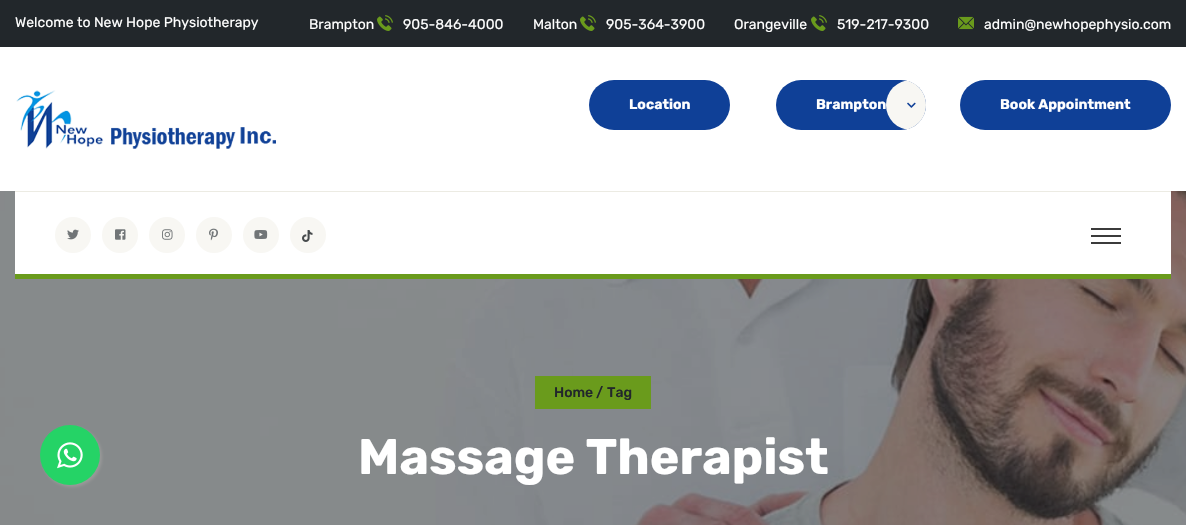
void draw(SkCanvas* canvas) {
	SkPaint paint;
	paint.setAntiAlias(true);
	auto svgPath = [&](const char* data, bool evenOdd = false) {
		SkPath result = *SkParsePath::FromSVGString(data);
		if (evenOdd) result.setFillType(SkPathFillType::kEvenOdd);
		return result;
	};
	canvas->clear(0xffffffff);
	paint.setColor(0xff22272b);
	canvas->drawRect(SkRect::MakeXYWH(0, 0, 1186, 47), paint);
	SkFont f1(fontMgr->matchFamilyStyle("Rubik", SkFontStyle::Normal()), 14);
	f1.setSubpixel(true);
	paint.setColor(0xffffffff);
	canvas->drawString("Welcome to New Hope Physiotherapy", 15, 27, f1, paint);
	canvas->drawString("Brampton", 309, 29, f1, paint);
	canvas->drawImageRect(SkImages::DeferredFromEncodedData(SkData::MakeFromFileName("img1.png")), SkRect::MakeXYWH(377, 15, 16, 16), SkSamplingOptions());
	canvas->drawString("905-846-4000", 403, 29, f1, paint);
	canvas->drawString("Malton", 533, 29, f1, paint);
	canvas->drawImageRect(SkImages::DeferredFromEncodedData(SkData::MakeFromFileName("img1.png")), SkRect::MakeXYWH(580, 15, 16, 16), SkSamplingOptions());
	canvas->drawString("905-364-3900", 606, 29, f1, paint);
	canvas->drawString("Orangeville", 734, 29, f1, paint);
	canvas->drawImageRect(SkImages::DeferredFromEncodedData(SkData::MakeFromFileName("img1.png")), SkRect::MakeXYWH(811, 15, 16, 16), SkSamplingOptions());
	canvas->drawString("519-217-9300", 837, 29, f1, paint);
	canvas->drawImageRect(SkImages::DeferredFromEncodedData(SkData::MakeFromFileName("img2.png")), SkRect::MakeXYWH(958, 16, 16, 14), SkSamplingOptions());
	canvas->drawString("admin@newhopephysio.com", 984, 29, f1, paint);
	canvas->drawImageRect(SkImages::DeferredFromEncodedData(SkData::MakeFromFileName("img3.png")), SkRect::MakeXYWH(16, 90, 260, 59), SkSamplingOptions());
	paint.setColor(0xff0f4097);
	canvas->drawRoundRect(SkRect::MakeXYWH(589, 80, 141, 50), 25, 25, paint);
	SkFont f2(fontMgr->matchFamilyStyle("Rubik", SkFontStyle::Bold()), 14);
	f2.setSubpixel(true);
	paint.setColor(0xffffffff);
	canvas->drawString("Location", 629, 109, f2, paint);
	paint.setColor(0xff0f4097);
	canvas->drawRoundRect(SkRect::MakeXYWH(776, 80, 150, 50), 25, 25, paint);
	paint.setColor(0xffffffff);
	canvas->drawString("Brampton", 816, 109, f2, paint);
	canvas->save();
	canvas->clipPath(svgPath("M801 80H901C915 80 926 91 926 105C926 119 915 130 901 130H801C787 130 776 119 776 105C776 91 787 80 801 80Z"), true);
	paint.setColor(0xfff8f7f3);
	canvas->drawCircle(911, 105, 25, paint);
	canvas->restore();
	canvas->drawImageRect(SkImages::DeferredFromEncodedData(SkData::MakeFromFileName("img4.png")), SkRect::MakeXYWH(907, 102, 9, 6), SkSamplingOptions());
	paint.setColor(0xff0f4097);
	canvas->drawRoundRect(SkRect::MakeXYWH(960, 80, 211, 50), 25, 25, paint);
	paint.setColor(0xffffffff);
	canvas->drawString("Book Appointment", 1000, 109, f2, paint);
	canvas->drawImageRect(SkImages::DeferredFromEncodedData(SkData::MakeFromFileName("img12.png")), SkRect::MakeXYWH(0, 191, 1186, 334), SkSamplingOptions());
	canvas->drawRect(SkRect::MakeXYWH(15, 192, 1156, 82), paint);
	paint.setColor(0xffecebe3);
	canvas->drawRect(SkRect::MakeXYWH(15, 191, 1156, 1), paint);
	paint.setColor(0xff6a9b1c);
	canvas->drawRect(SkRect::MakeXYWH(15, 274, 1156, 5), paint);
	paint.setColor(0xfff8f7f3);
	canvas->drawCircle(73, 235, 18, paint);
	canvas->drawImageRect(SkImages::DeferredFromEncodedData(SkData::MakeFromFileName("img5.png")), SkRect::MakeXYWH(67, 229, 12, 11), SkSamplingOptions());
	canvas->drawCircle(120, 235, 18, paint);
	canvas->drawImageRect(SkImages::DeferredFromEncodedData(SkData::MakeFromFileName("img6.png")), SkRect::MakeXYWH(115, 229, 11, 11), SkSamplingOptions());
	canvas->drawCircle(167, 235, 18, paint);
	canvas->drawImageRect(SkImages::DeferredFromEncodedData(SkData::MakeFromFileName("img7.png")), SkRect::MakeXYWH(162, 229, 11, 11), SkSamplingOptions());
	canvas->drawCircle(214, 235, 18, paint);
	canvas->drawImageRect(SkImages::DeferredFromEncodedData(SkData::MakeFromFileName("img8.png")), SkRect::MakeXYWH(209, 228, 9, 13), SkSamplingOptions());
	canvas->drawCircle(261, 235, 18, paint);
	canvas->drawImageRect(SkImages::DeferredFromEncodedData(SkData::MakeFromFileName("img9.png")), SkRect::MakeXYWH(254, 230, 14, 9), SkSamplingOptions());
	canvas->drawCircle(308, 235, 18, paint);
	canvas->drawImageRect(SkImages::DeferredFromEncodedData(SkData::MakeFromFileName("img10.png")), SkRect::MakeXYWH(302, 230, 11, 12), SkSamplingOptions());
	paint.setColor(0xff3b3b3b);
	canvas->drawRect(SkRect::MakeXYWH(1091, 228, 30, 2), paint);
	canvas->drawRect(SkRect::MakeXYWH(1091, 235, 30, 2), paint);
	canvas->drawRect(SkRect::MakeXYWH(1091, 242, 30, 2), paint);
	paint.setColor(0xff999999);
	paint.setMaskFilter(SkMaskFilter::MakeBlur(kNormal_SkBlurStyle, 1.5));
	canvas->drawRoundRect(SkRect::MakeXYWH(42, 427, 60, 60), 30, 30, paint);
	paint.setMaskFilter(nullptr);
	paint.setColor(0xff25d366);
	canvas->drawCircle(70, 455, 30, paint);
	canvas->drawImageRect(SkImages::DeferredFromEncodedData(SkData::MakeFromFileName("img11.png")), SkRect::MakeXYWH(57, 442, 26, 27), SkSamplingOptions());
	paint.setColor(0xff6a9b1c);
	canvas->drawRect(SkRect::MakeXYWH(535, 376, 116, 33), paint);
	SkFont f3(fontMgr->matchFamilyStyle("Rubik", SkFontStyle(500, SkFontStyle::kNormal_Width, SkFontStyle::kUpright_Slant)), 14);
	f3.setSubpixel(true);
	paint.setColor(0xff22272b);
	canvas->drawString("Home", 554, 397, f3, paint);
	canvas->drawString("/", 596, 397, f3, paint);
	canvas->drawString("Tag", 607, 397, f3, paint);
	SkFont f4(fontMgr->matchFamilyStyle("Rubik", SkFontStyle::Bold()), 50);
	f4.setSubpixel(true);
	paint.setColor(0xffffffff);
	canvas->drawString("Massage Therapist", 358, 474, f4, paint);
}
